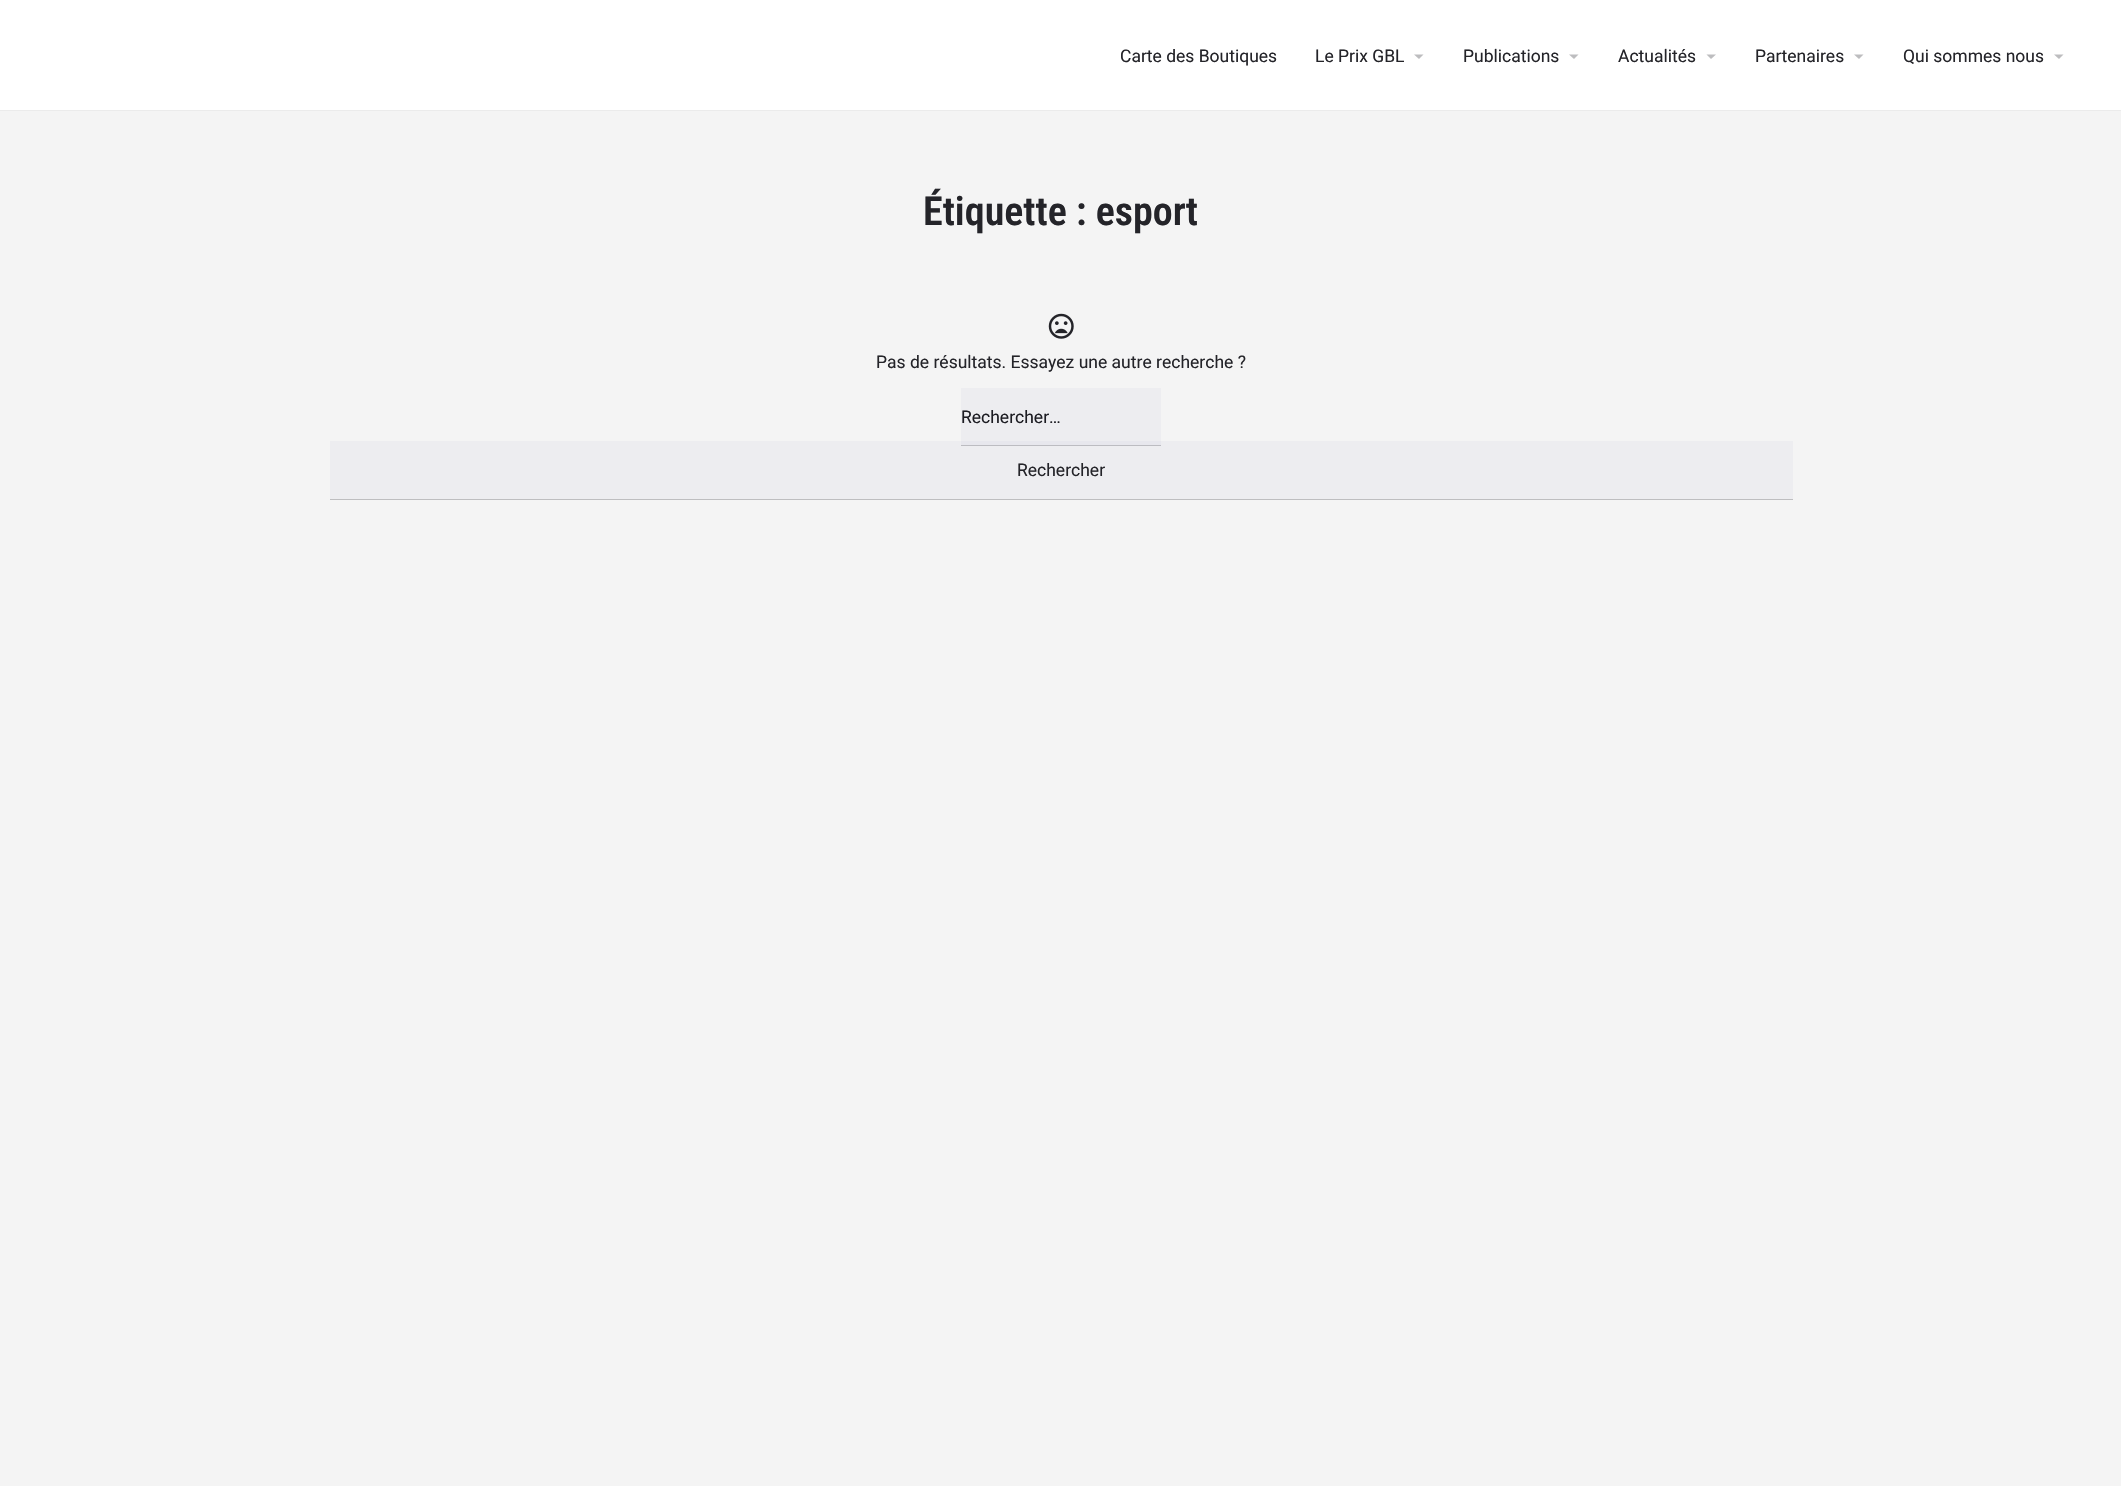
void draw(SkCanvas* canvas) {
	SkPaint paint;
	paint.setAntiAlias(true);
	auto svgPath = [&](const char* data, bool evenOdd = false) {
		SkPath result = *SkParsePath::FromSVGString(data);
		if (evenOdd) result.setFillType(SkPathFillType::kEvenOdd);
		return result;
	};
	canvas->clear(0xfff4f4f4);
	paint.setColor(0xffededf0);
	canvas->drawRect(SkRect::MakeXYWH(330, 441, 1463, 58), paint);
	paint.setColor(0xffffffff);
	canvas->drawRect(SkRect::MakeXYWH(0, 0, 2121, 110), paint);
	paint.setColor(0xffebebeb);
	canvas->drawRect(SkRect::MakeXYWH(0, 110, 2121, 1), paint);
	SkFont f1(fontMgr->matchFamilyStyle("Roboto", SkFontStyle::Normal()), 17.5);
	f1.setSubpixel(true);
	paint.setColor(0xff242429);
	canvas->drawString("Carte des Boutiques", 1120, 62, f1, paint);
	canvas->drawString("Le Prix GBL", 1315, 62, f1, paint);
	paint.setColor(0xffbdbdbf);
	canvas->drawPath(svgPath("M1414 54.5H1423.5L1419 59Z"), paint);
	paint.setColor(0xff242429);
	canvas->drawString("Publications", 1463, 62, f1, paint);
	paint.setColor(0xffbdbdbf);
	canvas->drawPath(svgPath("M1569 54.5H1578.5L1574 59Z"), paint);
	paint.setColor(0xff242429);
	canvas->drawString("Actualités", 1618, 62, f1, paint);
	paint.setColor(0xffbdbdbf);
	canvas->drawPath(svgPath("M1706.5 54.5H1716L1711 59Z"), paint);
	paint.setColor(0xff242429);
	canvas->drawString("Partenaires", 1755, 62, f1, paint);
	paint.setColor(0xffbdbdbf);
	canvas->drawPath(svgPath("M1854 54.5H1863.5L1859 59Z"), paint);
	paint.setColor(0xff242429);
	canvas->drawString("Qui sommes nous", 1903, 62, f1, paint);
	paint.setColor(0xffbdbdbf);
	canvas->drawPath(svgPath("M2054 54.5H2063.5L2059 59Z"), paint);
	SkFont f2(fontMgr->matchFamilyStyle("Roboto Condensed", SkFontStyle(600, SkFontStyle::kNormal_Width, SkFontStyle::kUpright_Slant)), 40);
	f2.setSubpixel(true);
	paint.setColor(0xff242429);
	canvas->drawString("Étiquette : esport", 923, 225, f2, paint);
	canvas->drawImageRect(SkImages::DeferredFromEncodedData(SkData::MakeFromFileName("img1.png")), SkRect::MakeXYWH(1048, 313, 26, 26), SkSamplingOptions());
	canvas->drawString("Pas de résultats. Essayez une autre recherche ?", 876, 368, f1, paint);
	paint.setColor(0xffededf0);
	canvas->drawRect(SkRect::MakeXYWH(961, 388, 200, 53), paint);
	paint.setColor(0xffe7e7ed);
	canvas->drawRect(SkRect::MakeXYWH(961, 441, 200, 4), paint);
	paint.setColor(0xffbcbcc1);
	canvas->drawRect(SkRect::MakeXYWH(961, 445, 200, 1), paint);
	paint.setColor(0xff1d1d23);
	canvas->drawString("Rechercher…", 961, 423, f1, paint);
	paint.setColor(0xffbebec0);
	canvas->drawRect(SkRect::MakeXYWH(330, 499, 1463, 1), paint);
	paint.setColor(0xff242429);
	canvas->drawString("Rechercher", 1017, 476, f1, paint);
}
